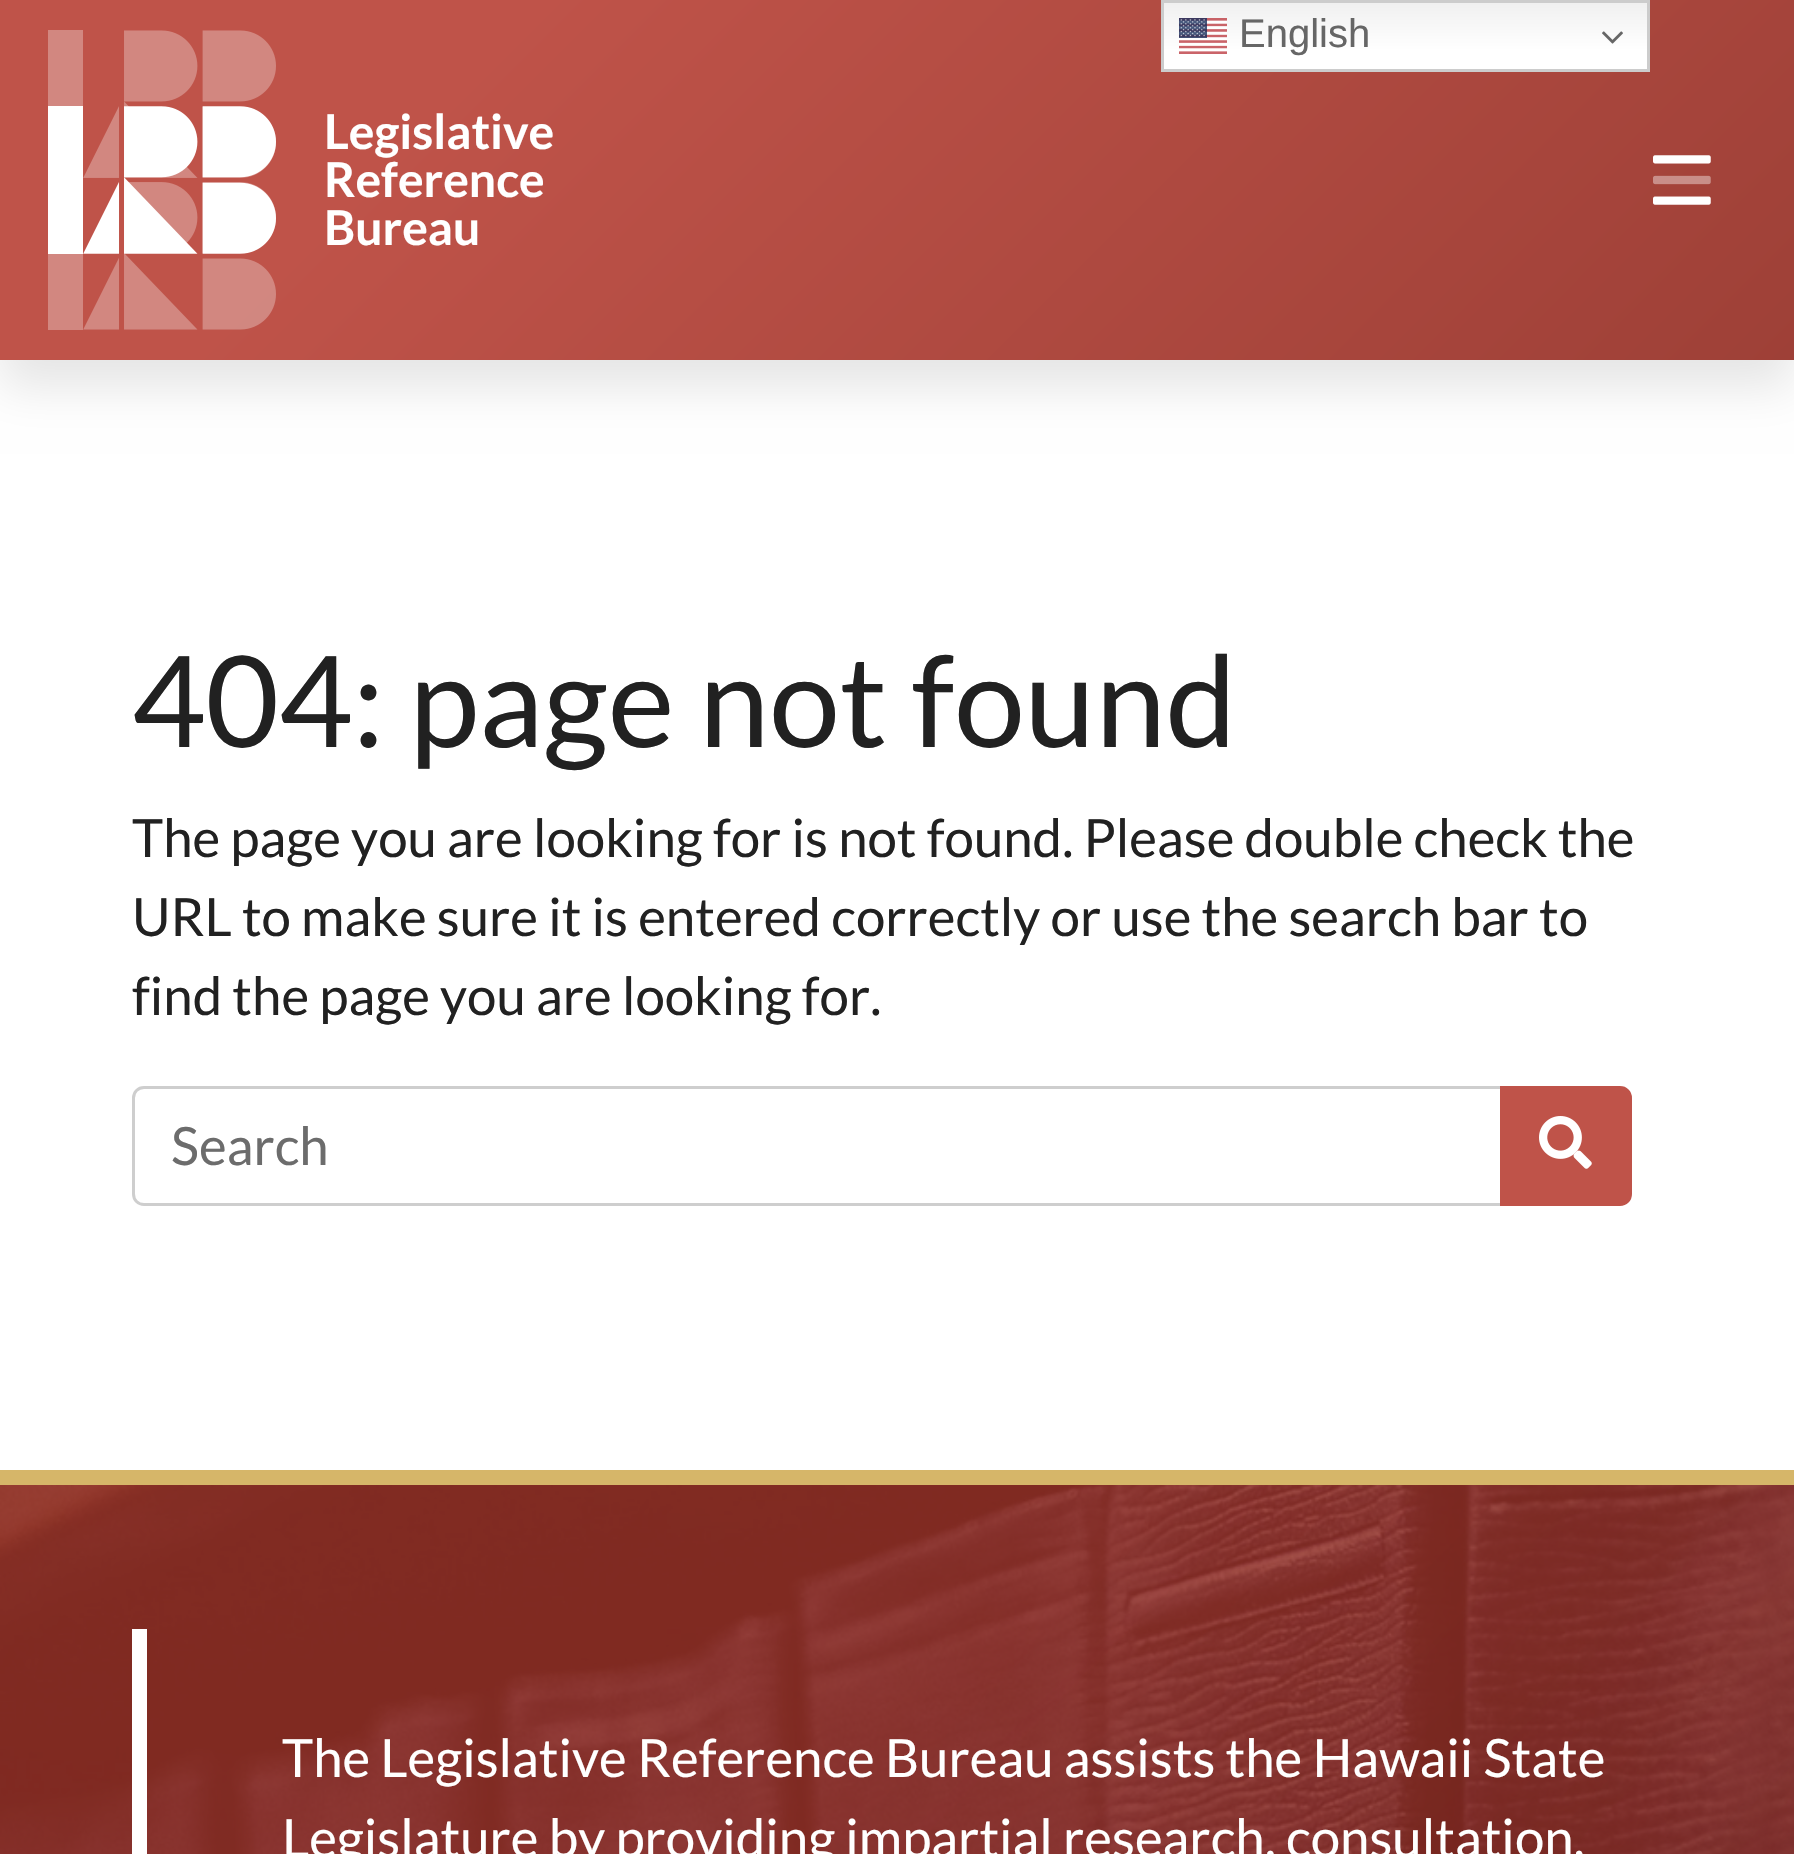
void draw(SkCanvas* canvas) {
	SkPaint paint;
	paint.setAntiAlias(true);
	auto svgPath = [&](const char* data, bool evenOdd = false) {
		SkPath result = *SkParsePath::FromSVGString(data);
		if (evenOdd) result.setFillType(SkPathFillType::kEvenOdd);
		return result;
	};
	canvas->clear(0xffffffff);
	paint.setColor(0x1a000000);
	paint.setMaskFilter(SkMaskFilter::MakeBlur(kNormal_SkBlurStyle, 22.5));
	canvas->drawRect(SkRect::MakeXYWH(0, 27, 1794, 360), paint);
	paint.setMaskFilter(nullptr);
	{
		const SkColor colors[] = {0xffbf5349, 0xff9e4037};
		const float stops[] = {0.25, 1};
		const SkPoint ends[] = {{358, -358}, {1436, 719}};
		paint.setShader(SkGradientShader::MakeLinear(ends, colors, stops, 2, SkTileMode::kClamp));
		paint.setAlpha(255);
	}
	canvas->drawRect(SkRect::MakeXYWH(0, 0, 1794, 360), paint);
	{
		const SkColor colors[] = {0xffefefef, 0xffffffff};
		const float stops[] = {0, 0.7};
		const SkPoint ends[] = {{1406, 0}, {1406, 72}};
		paint.setShader(SkGradientShader::MakeLinear(ends, colors, stops, 2, SkTileMode::kClamp));
		paint.setAlpha(255);
	}
	canvas->drawRect(SkRect::MakeXYWH(1164, 3, 483, 66), paint);
	paint.setStroke(true);
	paint.setStrokeWidth(3);
	paint.setShader(nullptr);
	paint.setColor(0xffcccccc);
	canvas->drawRect(SkRect::MakeXYWH(1162.5, 1.5, 486, 69), paint);
	canvas->drawImageRect(SkImages::DeferredFromEncodedData(SkData::MakeFromFileName("img1.png")), SkRect::MakeXYWH(1179, 18, 48, 36), SkSamplingOptions());
	SkFont f1(fontMgr->matchFamilyStyle("Liberation Sans", SkFontStyle::Normal()), 40);
	f1.setSubpixel(true);
	paint.setStroke(false);
	paint.setColor(0xff666666);
	canvas->drawString("English", 1239, 47, f1, paint);
	canvas->drawImageRect(SkImages::DeferredFromEncodedData(SkData::MakeFromFileName("img2.png")), SkRect::MakeXYWH(1602, 31, 21, 13), SkSamplingOptions());
	SkFont f2(fontMgr->matchFamilyStyle("Lato", SkFontStyle::Normal()), 126.75);
	f2.setSubpixel(true);
	paint.setColor(0xff212121);
	canvas->drawString("404: page not found", 132, 747, f2, paint);
	SkFont f3(fontMgr->matchFamilyStyle("Lato", SkFontStyle::Normal()), 52.8);
	f3.setSubpixel(true);
	canvas->drawString("The page you are looking for is not found. Please double check the", 132, 857, f3, paint);
	canvas->drawString("URL to make sure it is entered correctly or use the search bar to", 132, 936, f3, paint);
	canvas->drawString("find the page you are looking for.", 132, 1015, f3, paint);
	paint.setStroke(true);
	paint.setColor(0xffcecece);
	canvas->drawPath(svgPath("M144 1087.5H1501.5V1204.5H144C138 1204.5 133.5 1200 133.5 1194V1098C133.5 1092 138 1087.5 144 1087.5Z"), paint);
	paint.setStroke(false);
	paint.setColor(0xff6c6c6c);
	canvas->drawString("Search", 171, 1165, f3, paint);
	paint.setColor(0xffbf5349);
	canvas->drawPath(svgPath("M1501.5 1087.5H1620C1626 1087.5 1630.5 1092 1630.5 1098V1194C1630.5 1200 1626 1204.5 1620 1204.5H1501.5Z"), paint);
	paint.setStroke(true);
	canvas->drawPath(svgPath("M1501.5 1087.5H1620C1626 1087.5 1630.5 1092 1630.5 1098V1194C1630.5 1200 1626 1204.5 1620 1204.5H1501.5Z"), paint);
	canvas->drawImageRect(SkImages::DeferredFromEncodedData(SkData::MakeFromFileName("img3.png")), SkRect::MakeXYWH(1539, 1116, 53, 53), SkSamplingOptions());
	canvas->drawImageRect(SkImages::DeferredFromEncodedData(SkData::MakeFromFileName("img4.png")), SkRect::MakeXYWH(48, 30, 228, 300), SkSamplingOptions());
	SkFont f4(fontMgr->matchFamilyStyle("Lato", SkFontStyle::Bold()), 48);
	f4.setSubpixel(true);
	paint.setStroke(false);
	paint.setColor(0xffffffff);
	canvas->drawString("Legislative", 324, 149, f4, paint);
	canvas->drawString("Reference", 324, 197, f4, paint);
	canvas->drawString("Bureau", 324, 245, f4, paint);
	canvas->drawImageRect(SkImages::DeferredFromEncodedData(SkData::MakeFromFileName("img5.png")), SkRect::MakeXYWH(1653, 155, 58, 50), SkSamplingOptions());
	paint.setColor(0xffd6b669);
	canvas->drawRect(SkRect::MakeXYWH(0, 1470, 1794, 15), paint);
	canvas->drawImageRect(SkImages::DeferredFromEncodedData(SkData::MakeFromFileName("img6.png")), SkRect::MakeXYWH(0, 1485, 1794, 369), SkSamplingOptions());
	paint.setColor(0xffffffff);
	canvas->drawRect(SkRect::MakeXYWH(132, 1629, 15, 225), paint);
	canvas->drawString("The Legislative Reference Bureau assists the Hawaii State", 282, 1777, f3, paint);
	canvas->drawString("Legislature by providing impartial research, consultation,", 282, 1857, f3, paint);
}
